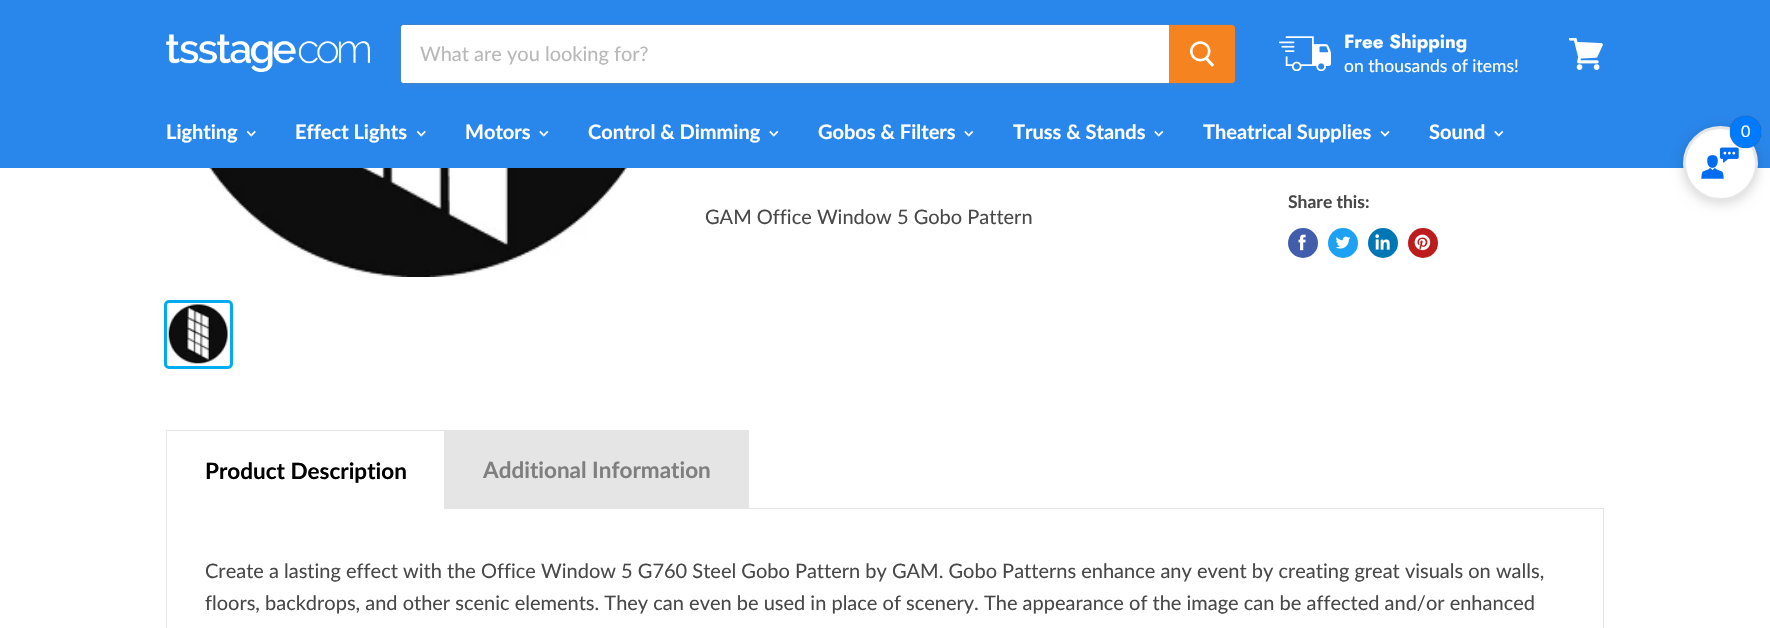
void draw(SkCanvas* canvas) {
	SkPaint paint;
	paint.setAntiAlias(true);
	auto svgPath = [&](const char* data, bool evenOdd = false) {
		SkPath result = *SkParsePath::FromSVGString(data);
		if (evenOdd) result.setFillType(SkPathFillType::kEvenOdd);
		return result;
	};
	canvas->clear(0xffffffff);
	paint.setColor(0xff2986ea);
	canvas->drawRect(SkRect::MakeXYWH(0, 0, 1770, 168), paint);
	canvas->drawImageRect(SkImages::DeferredFromEncodedData(SkData::MakeFromFileName("img1.png")), SkRect::MakeXYWH(166, 34, 204, 38), SkSamplingOptions());
	paint.setColor(0x1c7f7f7f);
	paint.setMaskFilter(SkMaskFilter::MakeBlur(kNormal_SkBlurStyle, 2));
	canvas->drawRoundRect(SkRect::MakeXYWH(400, 26, 836, 60), 5, 5, paint);
	paint.setMaskFilter(nullptr);
	paint.setStroke(true);
	paint.setStrokeWidth(1);
	paint.setColor(0x337f7f7f);
	canvas->drawRoundRect(SkRect::MakeXYWH(400.5, 24.5, 835, 59), 4.5, 4.5, paint);
	paint.setStroke(false);
	paint.setColor(0xffffffff);
	canvas->drawPath(svgPath("M403.5 25H1169V83H403.5C402 83 401 82 401 80.5V27.5C401 26 402 25 403.5 25Z"), paint);
	SkFont f1(fontMgr->matchFamilyStyle("Lato", SkFontStyle::Normal()), 20);
	f1.setSubpixel(true);
	paint.setColor(0xffb8b8b8);
	canvas->drawString("What are you looking for?", 420, 61, f1, paint);
	paint.setColor(0xfff5831f);
	canvas->drawPath(svgPath("M1169.5 25.5H1232.5C1233.5 25.5 1234.5 26.5 1234.5 27.5V80.5C1234.5 81.5 1233.5 82.5 1232.5 82.5H1169.5Z"), paint);
	paint.setStroke(true);
	canvas->drawPath(svgPath("M1169.5 25.5H1232.5C1233.5 25.5 1234.5 26.5 1234.5 27.5V80.5C1234.5 81.5 1233.5 82.5 1232.5 82.5H1169.5Z"), paint);
	canvas->drawImageRect(SkImages::DeferredFromEncodedData(SkData::MakeFromFileName("img2.png")), SkRect::MakeXYWH(1190, 41, 25, 26), SkSamplingOptions());
	canvas->drawImageRect(SkImages::DeferredFromEncodedData(SkData::MakeFromFileName("img3.png")), SkRect::MakeXYWH(1279, 36, 52, 35), SkSamplingOptions());
	SkFont f2(fontMgr->matchFamilyStyle("Jost", SkFontStyle::Bold()), 18.75);
	f2.setSubpixel(true);
	paint.setStroke(false);
	paint.setColor(0xffffffff);
	canvas->drawString("Free Shipping", 1344, 48, f2, paint);
	SkFont f3(fontMgr->matchFamilyStyle("Lato", SkFontStyle::Normal()), 17.5);
	f3.setSubpixel(true);
	canvas->drawString("on thousands of items!", 1344, 72, f3, paint);
	canvas->drawImageRect(SkImages::DeferredFromEncodedData(SkData::MakeFromFileName("img4.png")), SkRect::MakeXYWH(1569, 38, 34, 32), SkSamplingOptions());
	SkFont f4(fontMgr->matchFamilyStyle("Lato", SkFontStyle::Bold()), 20);
	f4.setSubpixel(true);
	canvas->drawString("Lighting", 166, 139, f4, paint);
	canvas->drawImageRect(SkImages::DeferredFromEncodedData(SkData::MakeFromFileName("img5.png")), SkRect::MakeXYWH(246, 130, 10, 7), SkSamplingOptions());
	canvas->drawString("Effect Lights", 295, 139, f4, paint);
	canvas->drawImageRect(SkImages::DeferredFromEncodedData(SkData::MakeFromFileName("img5.png")), SkRect::MakeXYWH(416, 130, 10, 7), SkSamplingOptions());
	canvas->drawString("Motors", 465, 139, f4, paint);
	canvas->drawImageRect(SkImages::DeferredFromEncodedData(SkData::MakeFromFileName("img6.png")), SkRect::MakeXYWH(539, 130, 10, 7), SkSamplingOptions());
	canvas->drawString("Control & Dimming", 588, 139, f4, paint);
	canvas->drawImageRect(SkImages::DeferredFromEncodedData(SkData::MakeFromFileName("img6.png")), SkRect::MakeXYWH(769, 130, 10, 7), SkSamplingOptions());
	canvas->drawString("Gobos & Filters", 818, 139, f4, paint);
	canvas->drawImageRect(SkImages::DeferredFromEncodedData(SkData::MakeFromFileName("img6.png")), SkRect::MakeXYWH(964, 130, 10, 7), SkSamplingOptions());
	canvas->drawString("Truss & Stands", 1013, 139, f4, paint);
	canvas->drawImageRect(SkImages::DeferredFromEncodedData(SkData::MakeFromFileName("img6.png")), SkRect::MakeXYWH(1154, 130, 10, 7), SkSamplingOptions());
	canvas->drawString("Theatrical Supplies", 1203, 139, f4, paint);
	canvas->drawImageRect(SkImages::DeferredFromEncodedData(SkData::MakeFromFileName("img7.png")), SkRect::MakeXYWH(1380, 130, 10, 7), SkSamplingOptions());
	canvas->drawString("Sound", 1429, 139, f4, paint);
	canvas->drawImageRect(SkImages::DeferredFromEncodedData(SkData::MakeFromFileName("img6.png")), SkRect::MakeXYWH(1494, 130, 10, 7), SkSamplingOptions());
	paint.setColor(0x26000000);
	paint.setMaskFilter(SkMaskFilter::MakeBlur(kNormal_SkBlurStyle, 6));
	canvas->drawRoundRect(SkRect::MakeXYWH(1683, 129, 75, 75), 37.5, 37.5, paint);
	paint.setMaskFilter(nullptr);
	paint.setColor(0xffffffff);
	canvas->drawCircle(1720.5, 163.5, 36, paint);
	paint.setStroke(true);
	paint.setStrokeWidth(3);
	paint.setColor(0xffe6e6e6);
	canvas->drawCircle(1720.5, 163.5, 36, paint);
	canvas->drawImageRect(SkImages::DeferredFromEncodedData(SkData::MakeFromFileName("img8.png")), SkRect::MakeXYWH(1701, 147, 38, 32), SkSamplingOptions());
	paint.setStroke(false);
	paint.setColor(0xff333333);
	paint.setMaskFilter(SkMaskFilter::MakeBlur(kNormal_SkBlurStyle, 0.5));
	canvas->drawRoundRect(SkRect::MakeXYWH(1730, 116, 31, 32), 15.5, 15.5, paint);
	paint.setMaskFilter(nullptr);
	paint.setColor(0xff007bff);
	canvas->drawRoundRect(SkRect::MakeXYWH(1730, 116, 31, 32), 15.5, 15.5, paint);
	SkFont f5(fontMgr->matchFamilyStyle("Lato", SkFontStyle::Normal()), 16);
	f5.setSubpixel(true);
	paint.setColor(0xffffffff);
	canvas->drawString("0", 1741, 137, f5, paint);
	canvas->drawImageRect(SkImages::DeferredFromEncodedData(SkData::MakeFromFileName("img9.png")), SkRect::MakeXYWH(166, 168, 504, 109), SkSamplingOptions());
	paint.setStroke(true);
	paint.setColor(0xff00acee);
	canvas->drawRoundRect(SkRect::MakeXYWH(165.5, 301.5, 66, 66), 3.5, 3.5, paint);
	canvas->drawImageRect(SkImages::DeferredFromEncodedData(SkData::MakeFromFileName("img10.png")), SkRect::MakeXYWH(168, 304, 60, 60), SkSamplingOptions());
	SkFont f6(fontMgr->matchFamilyStyle("Lato", SkFontStyle::Bold()), 17.5);
	f6.setSubpixel(true);
	paint.setStroke(false);
	paint.setColor(0xff484848);
	canvas->drawString("Share this:", 1288, 208, f6, paint);
	paint.setColor(0xff425dab);
	canvas->drawCircle(1303, 243, 15, paint);
	canvas->drawImageRect(SkImages::DeferredFromEncodedData(SkData::MakeFromFileName("img11.png")), SkRect::MakeXYWH(1298, 234, 8, 17), SkSamplingOptions());
	paint.setColor(0xff1da1f2);
	canvas->drawCircle(1343, 243, 15, paint);
	canvas->drawImageRect(SkImages::DeferredFromEncodedData(SkData::MakeFromFileName("img12.png")), SkRect::MakeXYWH(1335, 236, 16, 13), SkSamplingOptions());
	paint.setColor(0xff0077b5);
	canvas->drawCircle(1383, 243, 15, paint);
	canvas->drawImageRect(SkImages::DeferredFromEncodedData(SkData::MakeFromFileName("img13.png")), SkRect::MakeXYWH(1375, 234, 15, 16), SkSamplingOptions());
	paint.setColor(0xffbd1c1c);
	canvas->drawCircle(1423, 243, 15, paint);
	canvas->drawImageRect(SkImages::DeferredFromEncodedData(SkData::MakeFromFileName("img14.png")), SkRect::MakeXYWH(1414, 234, 17, 17), SkSamplingOptions());
	paint.setColor(0xff484848);
	canvas->drawString("GAM Office Window 5 Gobo Pattern", 705, 224, f1, paint);
	paint.setStroke(true);
	paint.setStrokeWidth(1);
	paint.setColor(0xffe5e5e5);
	canvas->drawRect(SkRect::MakeXYWH(166.5, 508.5, 1437, 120), paint);
	paint.setStroke(false);
	paint.setColor(0xffffffff);
	canvas->drawRect(SkRect::MakeXYWH(167, 508, 277, 1), paint);
	paint.setColor(0xffe5e5e5);
	canvas->drawRect(SkRect::MakeXYWH(166, 430, 279, 1), paint);
	canvas->drawRect(SkRect::MakeXYWH(444, 430, 1, 79), paint);
	canvas->drawRect(SkRect::MakeXYWH(166, 430, 1, 79), paint);
	SkFont f7(fontMgr->matchFamilyStyle("Lato", SkFontStyle::Bold()), 22.5);
	f7.setSubpixel(true);
	paint.setColor(0xff000000);
	canvas->drawString("Product Description", 205, 479, f7, paint);
	paint.setColor(0xffe5e5e5);
	canvas->drawRect(SkRect::MakeXYWH(445, 430, 304, 78), paint);
	paint.setColor(0xff7f7f7f);
	canvas->drawString("Additional Information", 483, 478, f7, paint);
	paint.setColor(0xff484848);
	canvas->drawString("Create a lasting effect with the Office Window 5 G760 Steel Gobo Pattern by GAM. Gobo Patterns enhance any event by creating great visuals on walls,", 205, 578, f1, paint);
	canvas->drawString("floors, backdrops, and other scenic elements. They can even be used in place of scenery. The appearance of the image can be affected and/or enhanced", 205, 610, f1, paint);
}
